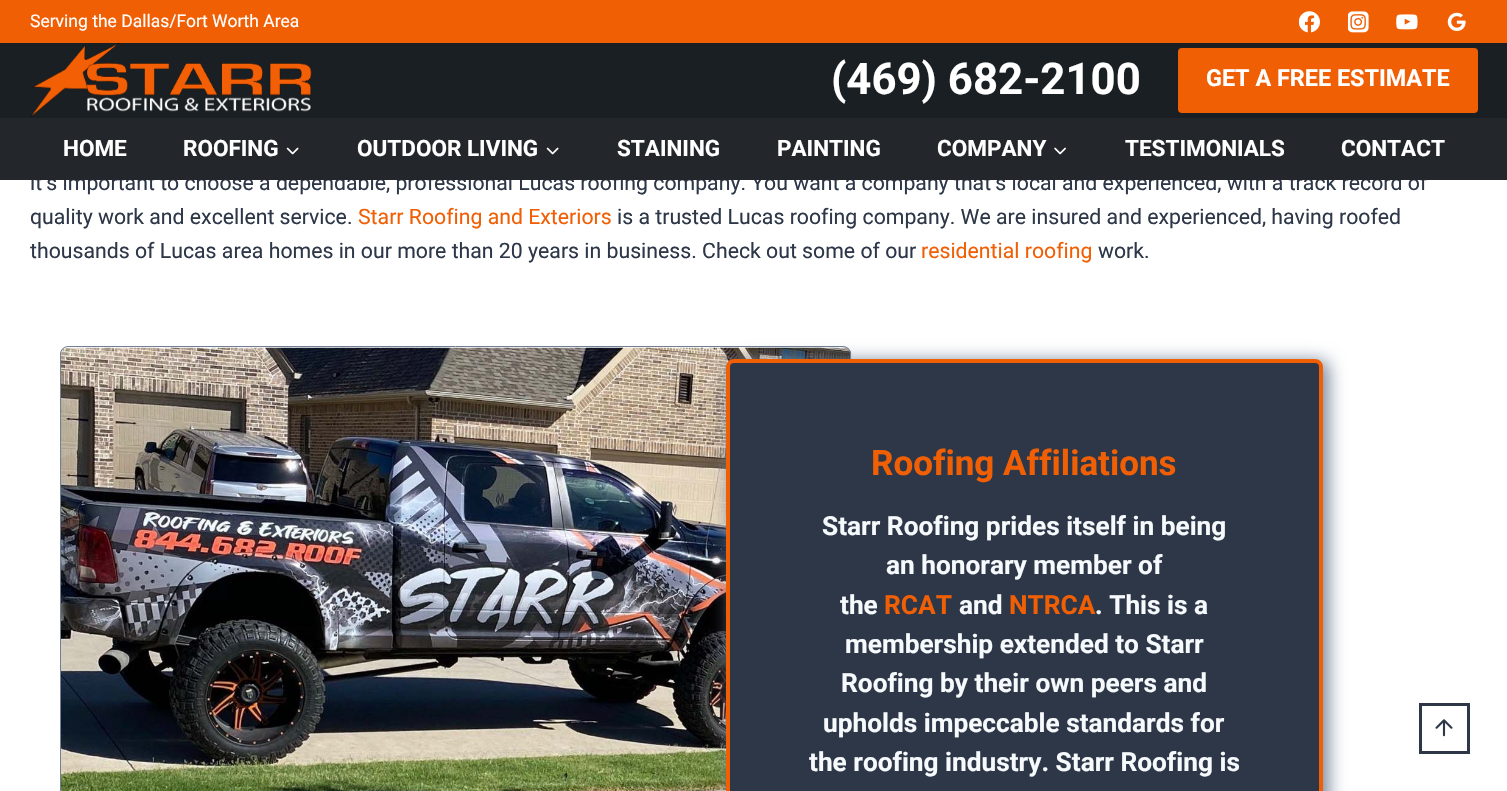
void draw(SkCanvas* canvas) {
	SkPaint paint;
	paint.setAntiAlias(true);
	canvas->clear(0xffffffff);
	paint.setColor(0xfff15f05);
	canvas->drawRect(SkRect::MakeXYWH(0, 0, 1507, 43), paint);
	SkFont f1(fontMgr->matchFamilyStyle("Roboto", SkFontStyle::Normal()), 17.5);
	f1.setSubpixel(true);
	paint.setColor(0xffffffff);
	canvas->drawString("Serving the Dallas/Fort Worth Area", 30, 27, f1, paint);
	canvas->drawImageRect(SkImages::DeferredFromEncodedData(SkData::MakeFromFileName("img1.png")), SkRect::MakeXYWH(1299, 11, 21, 22), SkSamplingOptions());
	canvas->drawImageRect(SkImages::DeferredFromEncodedData(SkData::MakeFromFileName("img2.png")), SkRect::MakeXYWH(1348, 11, 21, 22), SkSamplingOptions());
	canvas->drawImageRect(SkImages::DeferredFromEncodedData(SkData::MakeFromFileName("img3.png")), SkRect::MakeXYWH(1396, 14, 22, 16), SkSamplingOptions());
	canvas->drawImageRect(SkImages::DeferredFromEncodedData(SkData::MakeFromFileName("img4.png")), SkRect::MakeXYWH(1447, 12, 19, 19), SkSamplingOptions());
	paint.setColor(0xff1a1f23);
	canvas->drawRect(SkRect::MakeXYWH(0, 43, 1507, 75), paint);
	canvas->drawImageRect(SkImages::DeferredFromEncodedData(SkData::MakeFromFileName("img5.png")), SkRect::MakeXYWH(30, 42, 282, 75), SkSamplingOptions());
	SkFont f2(fontMgr->matchFamilyStyle("Roboto", SkFontStyle::Bold()), 43.75);
	f2.setSubpixel(true);
	paint.setColor(0xffffffff);
	canvas->drawString("(469) 682-2100", 831, 94, f2, paint);
	paint.setColor(0xfff15f05);
	canvas->drawRoundRect(SkRect::MakeXYWH(1178, 48, 300, 65), 4, 4, paint);
	SkFont f3(fontMgr->matchFamilyStyle("Roboto", SkFontStyle::Bold()), 23.4);
	f3.setSubpixel(true);
	paint.setColor(0xffffffff);
	canvas->drawString("GET A FREE ESTIMATE", 1206, 86, f3, paint);
	SkFont f4(fontMgr->matchFamilyStyle("Roboto", SkFontStyle::Normal()), 21.25);
	f4.setSubpixel(true);
	paint.setColor(0xff2d3748);
	canvas->drawString("it’s important to choose a dependable, professional Lucas roofing company. You want a company that’s local and experienced, with a track record of", 30, 190, f4, paint);
	paint.setColor(0xff23272b);
	canvas->drawRect(SkRect::MakeXYWH(0, 118, 1507, 62), paint);
	SkFont f5(fontMgr->matchFamilyStyle("Roboto", SkFontStyle::Bold()), 22.5);
	f5.setSubpixel(true);
	paint.setColor(0xffffffff);
	canvas->drawString("HOME", 63, 156, f5, paint);
	canvas->drawString("ROOFING", 183, 156, f5, paint);
	canvas->drawImageRect(SkImages::DeferredFromEncodedData(SkData::MakeFromFileName("img6.png")), SkRect::MakeXYWH(286, 147, 13, 8), SkSamplingOptions());
	canvas->drawString("OUTDOOR LIVING", 357, 156, f5, paint);
	canvas->drawImageRect(SkImages::DeferredFromEncodedData(SkData::MakeFromFileName("img6.png")), SkRect::MakeXYWH(546, 147, 13, 8), SkSamplingOptions());
	canvas->drawString("STAINING", 617, 156, f5, paint);
	canvas->drawString("PAINTING", 777, 156, f5, paint);
	canvas->drawString("COMPANY", 937, 156, f5, paint);
	canvas->drawImageRect(SkImages::DeferredFromEncodedData(SkData::MakeFromFileName("img7.png")), SkRect::MakeXYWH(1054, 147, 12, 8), SkSamplingOptions());
	canvas->drawString("TESTIMONIALS", 1125, 156, f5, paint);
	canvas->drawString("CONTACT", 1341, 156, f5, paint);
	paint.setColor(0xff2d3748);
	canvas->drawString("quality work and excellent service.", 30, 224, f4, paint);
	paint.setColor(0xfff15f05);
	canvas->drawString("Starr Roofing and Exteriors", 358, 224, f4, paint);
	paint.setColor(0xff2d3748);
	canvas->drawString("is a trusted Lucas roofing company. We are insured and experienced, having roofed", 617, 224, f4, paint);
	canvas->drawString("thousands of Lucas area homes in our more than 20 years in business. Check out some of our", 30, 258, f4, paint);
	paint.setColor(0xfff15f05);
	canvas->drawString("residential roofing", 921, 258, f4, paint);
	paint.setColor(0xff2d3748);
	canvas->drawString("work.", 1098, 258, f4, paint);
	canvas->drawImageRect(SkImages::DeferredFromEncodedData(SkData::MakeFromFileName("img8.png")), SkRect::MakeXYWH(60, 347, 792, 444), SkSamplingOptions());
	paint.setStroke(true);
	paint.setStrokeWidth(1);
	paint.setColor(0xff718096);
	canvas->drawRoundRect(SkRect::MakeXYWH(60.5, 346.5, 790, 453), 7.5, 7.5, paint);
	paint.setStroke(false);
	paint.setMaskFilter(SkMaskFilter::MakeBlur(kNormal_SkBlurStyle, 9));
	canvas->drawRoundRect(SkRect::MakeXYWH(731, 361, 597, 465), 8, 8, paint);
	paint.setMaskFilter(nullptr);
	paint.setColor(0xff2d3748);
	canvas->drawRoundRect(SkRect::MakeXYWH(728, 361, 593, 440), 6, 6, paint);
	paint.setStroke(true);
	paint.setStrokeWidth(4);
	paint.setColor(0xfff15f05);
	canvas->drawRoundRect(SkRect::MakeXYWH(728, 361, 593, 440), 6, 6, paint);
	SkFont f6(fontMgr->matchFamilyStyle("Roboto", SkFontStyle::Bold()), 35);
	f6.setSubpixel(true);
	paint.setStroke(false);
	canvas->drawString("Roofing Affiliations", 871, 475, f6, paint);
	SkFont f7(fontMgr->matchFamilyStyle("Roboto", SkFontStyle::Bold()), 26.25);
	f7.setSubpixel(true);
	paint.setColor(0xfff7fafc);
	canvas->drawString("Starr Roofing prides itself in being", 822, 535, f7, paint);
	canvas->drawString("an honorary member of", 886, 574, f7, paint);
	canvas->drawString("the", 840, 614, f7, paint);
	paint.setColor(0xfff15f05);
	canvas->drawString("RCAT", 884, 614, f7, paint);
	paint.setColor(0xfff7fafc);
	canvas->drawString("and", 959, 614, f7, paint);
	paint.setColor(0xfff15f05);
	canvas->drawString("NTRCA", 1009, 614, f7, paint);
	paint.setColor(0xfff7fafc);
	canvas->drawString(". This is a", 1095, 614, f7, paint);
	canvas->drawString("membership extended to Starr", 845, 653, f7, paint);
	canvas->drawString("Roofing by their own peers and", 841, 692, f7, paint);
	canvas->drawString("upholds impeccable standards for", 823, 732, f7, paint);
	canvas->drawString("the roofing industry. Starr Roofing is", 809, 771, f7, paint);
	paint.setStroke(true);
	paint.setStrokeWidth(3);
	paint.setColor(0xff2d3748);
	canvas->drawRect(SkRect::MakeXYWH(1420.5, 704.5, 48, 48), paint);
	canvas->drawImageRect(SkImages::DeferredFromEncodedData(SkData::MakeFromFileName("img9.png")), SkRect::MakeXYWH(1435, 719, 18, 18), SkSamplingOptions());
}
